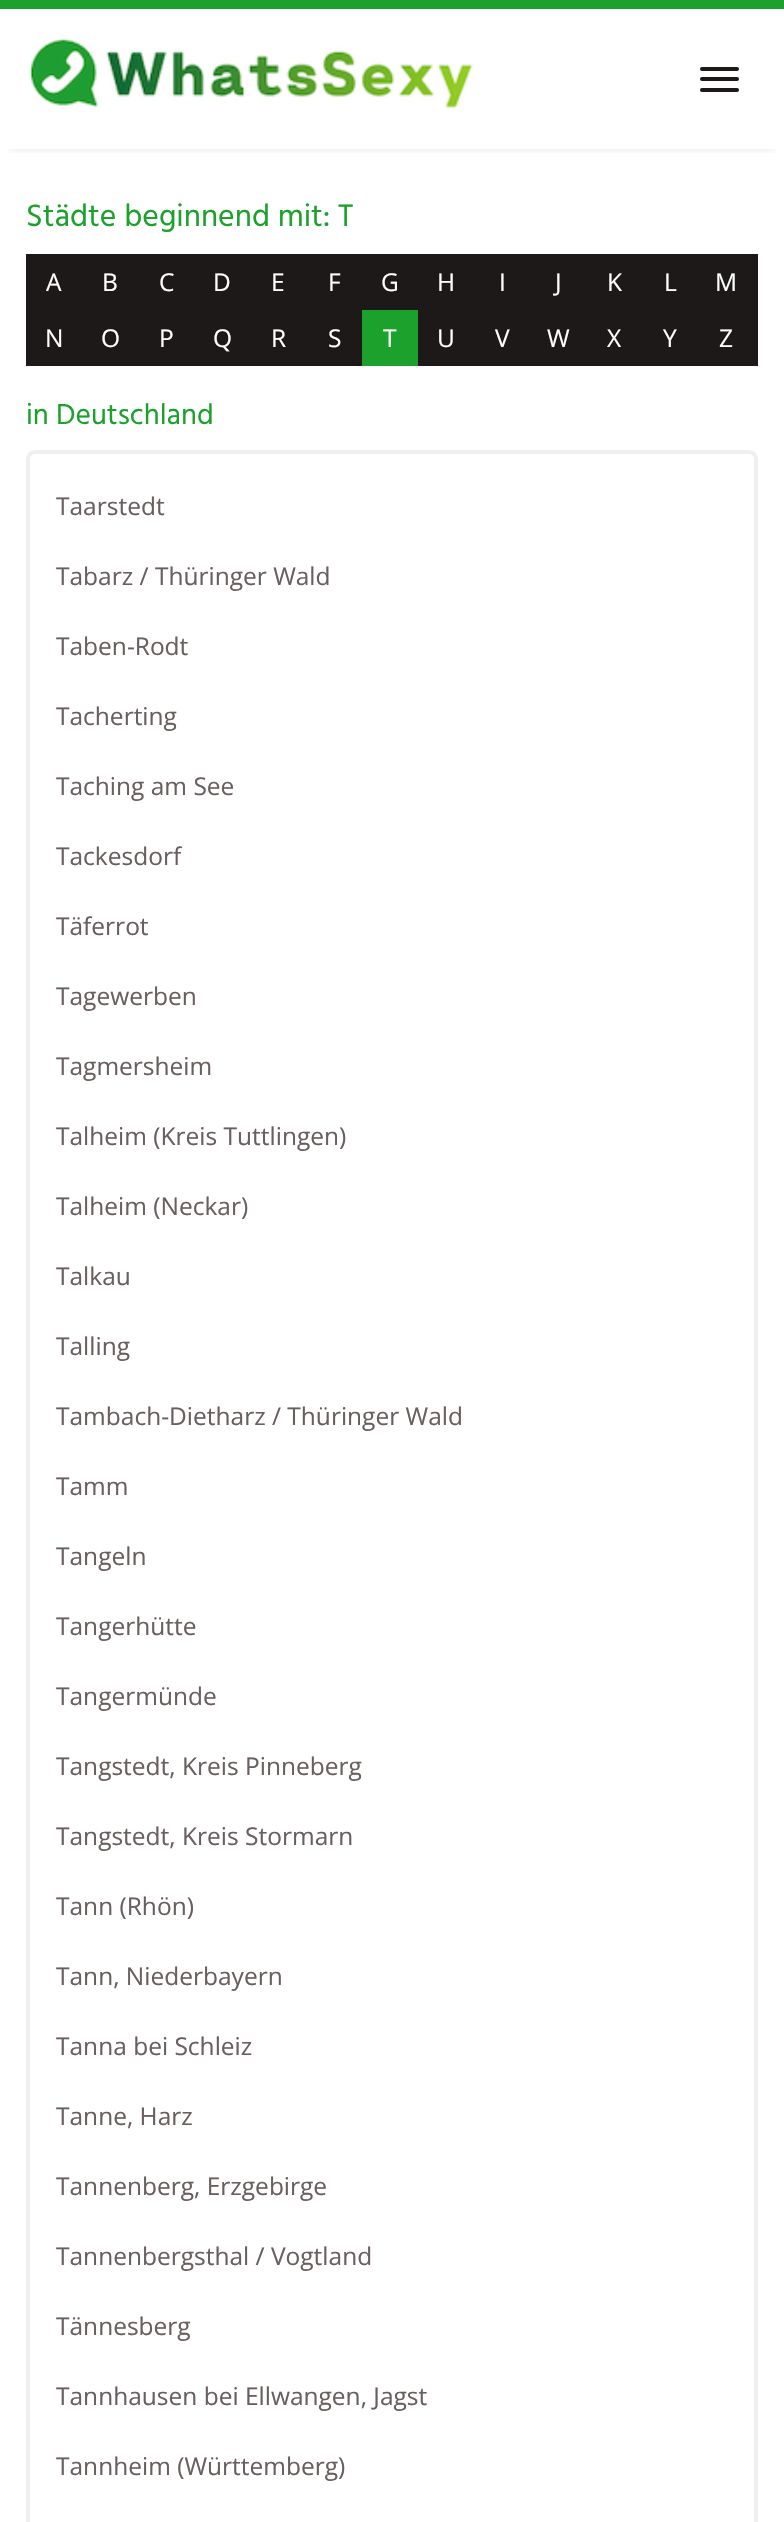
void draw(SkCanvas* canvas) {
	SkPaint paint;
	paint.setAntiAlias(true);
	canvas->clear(0xffffffff);
	paint.setColor(0xff1ba12c);
	canvas->drawRect(SkRect::MakeXYWH(0, 0, 784, 9), paint);
	canvas->save();
	canvas->clipRect(SkRect::MakeXYWH(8, 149, 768, 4));
	paint.setColor(0x1a000000);
	paint.setMaskFilter(SkMaskFilter::MakeBlur(kNormal_SkBlurStyle, 4.5));
	canvas->drawRect(SkRect::MakeXYWH(9, 26, 766, 123), paint);
	paint.setMaskFilter(nullptr);
	canvas->restore();
	canvas->drawImageRect(SkImages::DeferredFromEncodedData(SkData::MakeFromFileName("img1.png")), SkRect::MakeXYWH(29, 38, 444, 71), SkSamplingOptions());
	paint.setColor(0xff1e1919);
	canvas->drawRoundRect(SkRect::MakeXYWH(700, 67, 39, 4), 2, 2, paint);
	canvas->drawRoundRect(SkRect::MakeXYWH(700, 77, 39, 4), 2, 2, paint);
	canvas->drawRoundRect(SkRect::MakeXYWH(700, 88, 39, 4), 2, 2, paint);
	SkFont f1(fontMgr->matchFamilyStyle("Hind", SkFontStyle::Normal()), 31.8);
	f1.setSubpixel(true);
	paint.setColor(0xff1ba12c);
	canvas->drawString("Städte beginnend mit: T", 26, 226, f1, paint);
	paint.setColor(0xff1e1919);
	canvas->drawRect(SkRect::MakeXYWH(26, 254, 732, 112), paint);
	SkFont f2(fontMgr->matchFamilyStyle("Open Sans", SkFontStyle::Normal()), 24.5);
	f2.setSubpixel(true);
	paint.setColor(0xffffffff);
	canvas->drawString("A", 46, 291, f2, paint);
	canvas->drawString("B", 102, 291, f2, paint);
	canvas->drawString("C", 159, 291, f2, paint);
	canvas->drawString("D", 213, 291, f2, paint);
	canvas->drawString("E", 271, 291, f2, paint);
	canvas->drawString("F", 328, 291, f2, paint);
	canvas->drawString("G", 381, 291, f2, paint);
	canvas->drawString("H", 437, 291, f2, paint);
	canvas->drawString("I", 499, 291, f2, paint);
	canvas->drawString("J", 555, 291, f2, paint);
	canvas->drawString("K", 607, 291, f2, paint);
	canvas->drawString("L", 664, 291, f2, paint);
	canvas->drawString("M", 715, 291, f2, paint);
	canvas->drawString("N", 45, 347, f2, paint);
	canvas->drawString("O", 101, 347, f2, paint);
	canvas->drawString("P", 159, 347, f2, paint);
	canvas->drawString("Q", 213, 347, f2, paint);
	canvas->drawString("R", 271, 347, f2, paint);
	canvas->drawString("S", 328, 347, f2, paint);
	paint.setColor(0xff1ba12c);
	canvas->drawRect(SkRect::MakeXYWH(362, 310, 56, 56), paint);
	paint.setColor(0xffffffff);
	canvas->drawString("T", 383, 347, f2, paint);
	canvas->drawString("U", 437, 347, f2, paint);
	canvas->drawString("V", 495, 347, f2, paint);
	canvas->drawString("W", 547, 347, f2, paint);
	canvas->drawString("X", 607, 347, f2, paint);
	canvas->drawString("Y", 663, 347, f2, paint);
	canvas->drawString("Z", 719, 347, f2, paint);
	SkFont f3(fontMgr->matchFamilyStyle("Hind", SkFontStyle::Normal()), 29.5);
	f3.setSubpixel(true);
	paint.setColor(0xff1ba12c);
	canvas->drawString("in Deutschland", 26, 424, f3, paint);
	paint.setStroke(true);
	paint.setStrokeWidth(4);
	paint.setColor(0xffefefef);
	canvas->drawRoundRect(SkRect::MakeXYWH(28, 452, 728, 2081), 7, 7, paint);
	paint.setStroke(false);
	paint.setColor(0xff695f5f);
	canvas->drawString("Taarstedt", 56, 515, f2, paint);
	canvas->drawString("Tabarz / Thüringer Wald", 56, 585, f2, paint);
	canvas->drawString("Taben-Rodt", 56, 655, f2, paint);
	canvas->drawString("Tacherting", 56, 725, f2, paint);
	canvas->drawString("Taching am See", 56, 795, f2, paint);
	canvas->drawString("Tackesdorf", 56, 865, f2, paint);
	canvas->drawString("Täferrot", 56, 935, f2, paint);
	canvas->drawString("Tagewerben", 56, 1005, f2, paint);
	canvas->drawString("Tagmersheim", 56, 1075, f2, paint);
	canvas->drawString("Talheim (Kreis Tuttlingen)", 56, 1145, f2, paint);
	canvas->drawString("Talheim (Neckar)", 56, 1215, f2, paint);
	canvas->drawString("Talkau", 56, 1285, f2, paint);
	canvas->drawString("Talling", 56, 1355, f2, paint);
	canvas->drawString("Tambach-Dietharz / Thüringer Wald", 56, 1425, f2, paint);
	canvas->drawString("Tamm", 56, 1495, f2, paint);
	canvas->drawString("Tangeln", 56, 1565, f2, paint);
	canvas->drawString("Tangerhütte", 56, 1635, f2, paint);
	canvas->drawString("Tangermünde", 56, 1705, f2, paint);
	canvas->drawString("Tangstedt, Kreis Pinneberg", 56, 1775, f2, paint);
	canvas->drawString("Tangstedt, Kreis Stormarn", 56, 1845, f2, paint);
	canvas->drawString("Tann (Rhön)", 56, 1915, f2, paint);
	canvas->drawString("Tann, Niederbayern", 56, 1985, f2, paint);
	canvas->drawString("Tanna bei Schleiz", 56, 2055, f2, paint);
	canvas->drawString("Tanne, Harz", 56, 2125, f2, paint);
	canvas->drawString("Tannenberg, Erzgebirge", 56, 2195, f2, paint);
	canvas->drawString("Tannenbergsthal / Vogtland", 56, 2265, f2, paint);
	canvas->drawString("Tännesberg", 56, 2335, f2, paint);
	canvas->drawString("Tannhausen bei Ellwangen, Jagst", 56, 2405, f2, paint);
	canvas->drawString("Tannheim (Württemberg)", 56, 2475, f2, paint);
}
